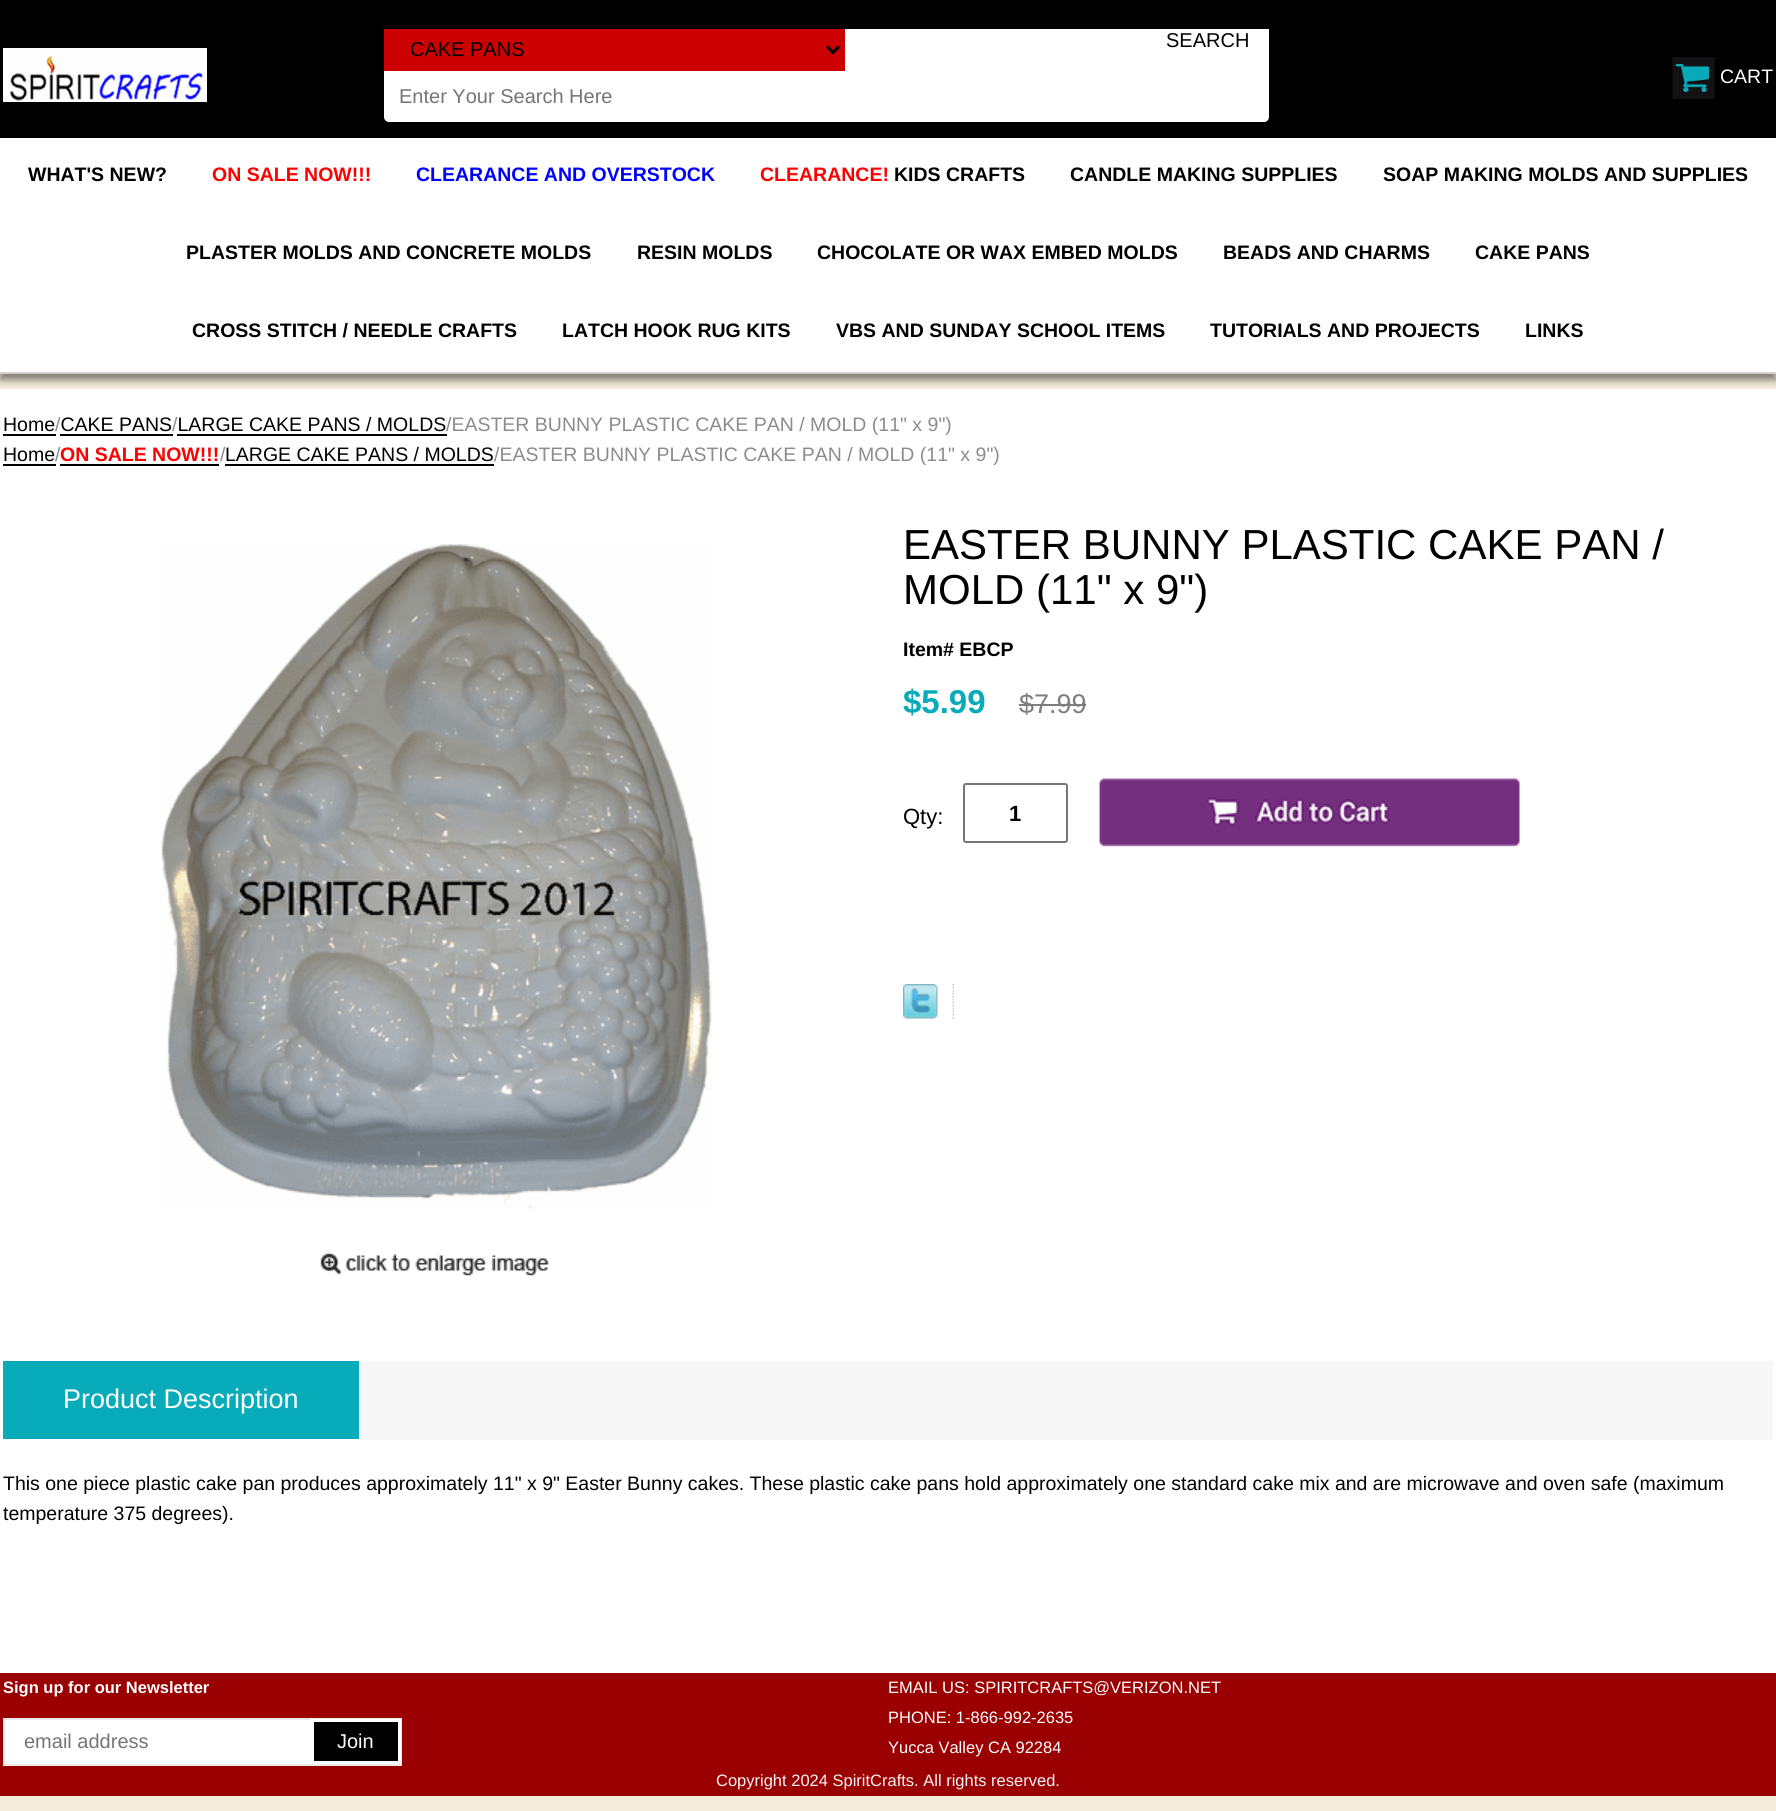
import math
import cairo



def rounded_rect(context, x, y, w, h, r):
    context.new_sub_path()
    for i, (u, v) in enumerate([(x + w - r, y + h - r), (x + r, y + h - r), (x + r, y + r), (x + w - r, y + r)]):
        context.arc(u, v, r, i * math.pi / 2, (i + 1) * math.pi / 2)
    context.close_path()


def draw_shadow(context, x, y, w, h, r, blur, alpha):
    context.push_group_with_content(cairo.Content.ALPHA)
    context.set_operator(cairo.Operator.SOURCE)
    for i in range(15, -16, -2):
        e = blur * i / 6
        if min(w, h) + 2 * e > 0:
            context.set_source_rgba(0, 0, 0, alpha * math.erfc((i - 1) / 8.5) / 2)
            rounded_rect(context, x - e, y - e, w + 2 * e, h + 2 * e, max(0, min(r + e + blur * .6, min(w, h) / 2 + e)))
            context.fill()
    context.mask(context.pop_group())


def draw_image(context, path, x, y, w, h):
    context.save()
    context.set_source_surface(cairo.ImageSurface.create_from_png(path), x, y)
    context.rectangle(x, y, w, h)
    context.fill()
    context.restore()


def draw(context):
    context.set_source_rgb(243 / 255, 236 / 255, 218 / 255)
    context.paint()
    context.set_source_rgb(0, 0, 0)
    context.rectangle(0, 0, 1776, 138)
    context.fill()
    draw_image(context, "images/1.png", 3, 48, 204, 54)
    context.set_source_rgb(1, 1, 1)
    rounded_rect(context, 384, 29, 885, 93, 5)
    context.fill()
    context.rectangle(1264, 29, 5, 5)
    context.fill()
    context.set_source_rgb(204 / 255, 0, 0)
    context.rectangle(384, 29, 461, 42)
    context.fill()
    context.new_path()
    context.move_to(827, 46.5)
    context.line_to(833, 52.5)
    context.line_to(839, 46.5)
    context.set_source_rgb(0, 0, 0)
    context.set_line_width(3)
    context.stroke()
    draw_image(context, "images/2.png", 1672, 57, 43, 42)
    context.set_source_rgb(0, 0, 0)
    draw_shadow(context, 0, 144, 1776, 236, 0, 4, 0.48)
    context.set_source_rgb(1, 1, 1)
    context.rectangle(0, 138, 1776, 234)
    context.fill()
    context.set_source_rgb(208 / 255, 208 / 255, 208 / 255)
    context.rectangle(0, 372, 1776, 2)
    context.fill()
    context.set_source_rgb(1, 1, 1)
    context.rectangle(0, 389, 1776, 1284)
    context.fill()
    context.set_source_rgb(0, 0, 0)
    context.rectangle(3, 434, 53, 2)
    context.fill()
    context.rectangle(60, 434, 113, 2)
    context.fill()
    context.rectangle(177, 434, 270, 2)
    context.fill()
    context.rectangle(3, 464, 53, 2)
    context.fill()
    context.rectangle(60, 464, 159, 2)
    context.fill()
    context.rectangle(225, 464, 269, 2)
    context.fill()
    draw_image(context, "images/3.png", 161, 544, 551, 667)
    draw_image(context, "images/4.png", 320, 1252, 230, 24)
    context.set_source_rgb(126 / 255, 126 / 255, 126 / 255)
    context.rectangle(1019, 704, 67, 2)
    context.fill()
    rounded_rect(context, 964, 784, 103, 58, 2)
    context.set_source_rgb(118 / 255, 118 / 255, 118 / 255)
    context.set_line_width(2)
    context.stroke()
    draw_image(context, "images/5.png", 1099, 778, 421, 69)
    draw_image(context, "images/6.png", 903, 984, 35, 35)
    draw_image(context, "images/7.png", 952, 984, 2, 35)
    context.set_source_rgb(247 / 255, 247 / 255, 247 / 255)
    context.rectangle(359, 1361, 1414, 79)
    context.fill()
    context.set_source_rgb(8 / 255, 171 / 255, 186 / 255)
    context.rectangle(3, 1361, 356, 78)
    context.fill()
    context.set_source_rgb(154 / 255, 0, 2 / 255)
    context.rectangle(0, 1673, 1776, 123)
    context.fill()
    context.set_source_rgb(1, 1, 1)
    context.rectangle(5, 1720, 306, 44)
    context.fill()
    context.rectangle(4, 1719, 397, 46)
    context.set_source_rgb(235 / 255, 235 / 255, 235 / 255)
    context.stroke()
    context.set_source_rgb(0, 0, 0)
    context.rectangle(312.5, 1720.5, 87, 42)
    context.fill_preserve()
    context.set_source_rgb(1, 1, 1)
    context.set_line_width(3)
    context.stroke()
    context.select_font_face("Liberation Sans")
    context.set_font_size(20)
    context.set_source_rgb(0, 0, 0)
    context.move_to(1166, 47)
    context.show_text("SEARCH")
    context.move_to(410, 56)
    context.show_text("CAKE PANS")
    context.set_source_rgb(117 / 255, 117 / 255, 117 / 255)
    context.move_to(399, 103)
    context.show_text("Enter Your Search Here")
    context.set_font_size(19.5)
    context.set_source_rgb(1, 1, 1)
    context.move_to(1720, 83)
    context.show_text("CART")
    context.select_font_face("Liberation Sans", cairo.FontSlant.NORMAL, cairo.FontWeight.BOLD)
    context.set_source_rgb(0, 0, 0)
    context.move_to(28, 181)
    context.show_text("WHAT'S NEW?")
    context.set_source_rgb(1, 0, 0)
    context.move_to(212, 181)
    context.show_text("ON SALE NOW!!!")
    context.set_source_rgb(0, 0, 1)
    context.move_to(416, 181)
    context.show_text("CLEARANCE AND OVERSTOCK")
    context.set_source_rgb(1, 0, 0)
    context.move_to(760, 181)
    context.show_text("CLEARANCE!")
    context.set_source_rgb(0, 0, 0)
    context.move_to(894, 181)
    context.show_text("KIDS CRAFTS")
    context.move_to(1070, 181)
    context.show_text("CANDLE MAKING SUPPLIES")
    context.move_to(1383, 181)
    context.show_text("SOAP MAKING MOLDS AND SUPPLIES")
    context.move_to(186, 259)
    context.show_text("PLASTER MOLDS AND CONCRETE MOLDS")
    context.move_to(637, 259)
    context.show_text("RESIN MOLDS")
    context.move_to(817, 259)
    context.show_text("CHOCOLATE OR WAX EMBED MOLDS")
    context.move_to(1223, 259)
    context.show_text("BEADS AND CHARMS")
    context.move_to(1475, 259)
    context.show_text("CAKE PANS")
    context.move_to(192, 337)
    context.show_text("CROSS STITCH / NEEDLE CRAFTS")
    context.move_to(562, 337)
    context.show_text("LATCH HOOK RUG KITS")
    context.move_to(836, 337)
    context.show_text("VBS AND SUNDAY SCHOOL ITEMS")
    context.move_to(1210, 337)
    context.show_text("TUTORIALS AND PROJECTS")
    context.move_to(1525, 337)
    context.show_text("LINKS")
    context.select_font_face("Liberation Sans")
    context.move_to(3, 431)
    context.show_text("Home CAKE PANS LARGE CAKE PANS / MOLDS")
    context.set_source_rgb(140 / 255, 140 / 255, 140 / 255)
    context.move_to(55, 431)
    context.show_text("/")
    context.move_to(172, 431)
    context.show_text("/")
    context.move_to(446, 431)
    context.show_text("/EASTER BUNNY PLASTIC CAKE PAN / MOLD (11\" x 9\")")
    context.set_source_rgb(0, 0, 0)
    context.move_to(3, 461)
    context.show_text("Home")
    context.set_source_rgb(140 / 255, 140 / 255, 140 / 255)
    context.move_to(55, 461)
    context.show_text("/")
    context.select_font_face("Liberation Sans", cairo.FontSlant.NORMAL, cairo.FontWeight.BOLD)
    context.set_source_rgb(1, 0, 0)
    context.move_to(60, 461)
    context.show_text("ON SALE NOW!!!")
    context.select_font_face("Liberation Sans")
    context.set_source_rgb(140 / 255, 140 / 255, 140 / 255)
    context.move_to(220, 461)
    context.show_text("/")
    context.set_source_rgb(0, 0, 0)
    context.move_to(225, 461)
    context.show_text("LARGE CAKE PANS / MOLDS")
    context.set_source_rgb(140 / 255, 140 / 255, 140 / 255)
    context.move_to(494, 461)
    context.show_text("/EASTER BUNNY PLASTIC CAKE PAN / MOLD (11\" x 9\")")
    context.set_font_size(42)
    context.set_source_rgb(0, 0, 0)
    context.move_to(903, 559)
    context.show_text("EASTER BUNNY PLASTIC CAKE PAN /")
    context.move_to(903, 604)
    context.show_text("MOLD (11\" x 9\")")
    context.select_font_face("Liberation Sans", cairo.FontSlant.NORMAL, cairo.FontWeight.BOLD)
    context.set_font_size(19.5)
    context.move_to(903, 656)
    context.show_text("Item# EBCP")
    context.set_font_size(33)
    context.set_source_rgb(8 / 255, 171 / 255, 186 / 255)
    context.move_to(903, 713)
    context.show_text("$5.99")
    context.select_font_face("Liberation Sans")
    context.set_font_size(27)
    context.set_source_rgb(126 / 255, 126 / 255, 126 / 255)
    context.move_to(1019, 713)
    context.show_text("$7.99")
    context.set_font_size(22)
    context.set_source_rgb(0, 0, 0)
    context.move_to(903, 824)
    context.show_text("Qty:")
    context.select_font_face("Liberation Sans", cairo.FontSlant.NORMAL, cairo.FontWeight.BOLD)
    context.move_to(1009, 821)
    context.show_text("1")
    context.select_font_face("Liberation Sans")
    context.set_font_size(27)
    context.set_source_rgb(1, 1, 1)
    context.move_to(63, 1408)
    context.show_text("Product Description")
    context.set_font_size(19.5)
    context.set_source_rgb(0, 0, 0)
    context.move_to(3, 1490)
    context.show_text("This one piece plastic cake pan produces approximately 11\" x 9\" Easter Bunny cakes. These plastic cake pans hold approximately one standard cake mix and are microwave and oven safe (maximum")
    context.move_to(3, 1520)
    context.show_text("temperature 375 degrees).")
    context.select_font_face("Liberation Sans", cairo.FontSlant.NORMAL, cairo.FontWeight.BOLD)
    context.set_font_size(16.5)
    context.set_source_rgb(1, 1, 1)
    context.move_to(3, 1693)
    context.show_text("Sign up for our Newsletter")
    context.select_font_face("Liberation Sans")
    context.set_font_size(20)
    context.set_source_rgb(117 / 255, 117 / 255, 117 / 255)
    context.move_to(24, 1748)
    context.show_text("email address")
    context.set_source_rgb(1, 1, 1)
    context.move_to(337, 1748)
    context.show_text("Join")
    context.set_font_size(16.5)
    context.move_to(888, 1693)
    context.show_text("EMAIL US: SPIRITCRAFTS@VERIZON.NET")
    context.move_to(888, 1723)
    context.show_text("PHONE: 1-866-992-2635")
    context.move_to(888, 1753)
    context.show_text("Yucca Valley CA 92284")
    context.set_source_rgb(246 / 255, 246 / 255, 246 / 255)
    context.move_to(716, 1786)
    context.show_text("Copyright 2024 SpiritCrafts. All rights reserved.")


surface = cairo.ImageSurface(cairo.Format.RGB24, 1776, 1811)
context = cairo.Context(surface)
options = cairo.FontOptions()
options.set_hint_metrics(cairo.HintMetrics.OFF)
options.set_hint_style(cairo.HintStyle.NONE)
context.set_font_options(options)
context.set_miter_limit(4)
draw(context)
surface.write_to_png("out.png")
